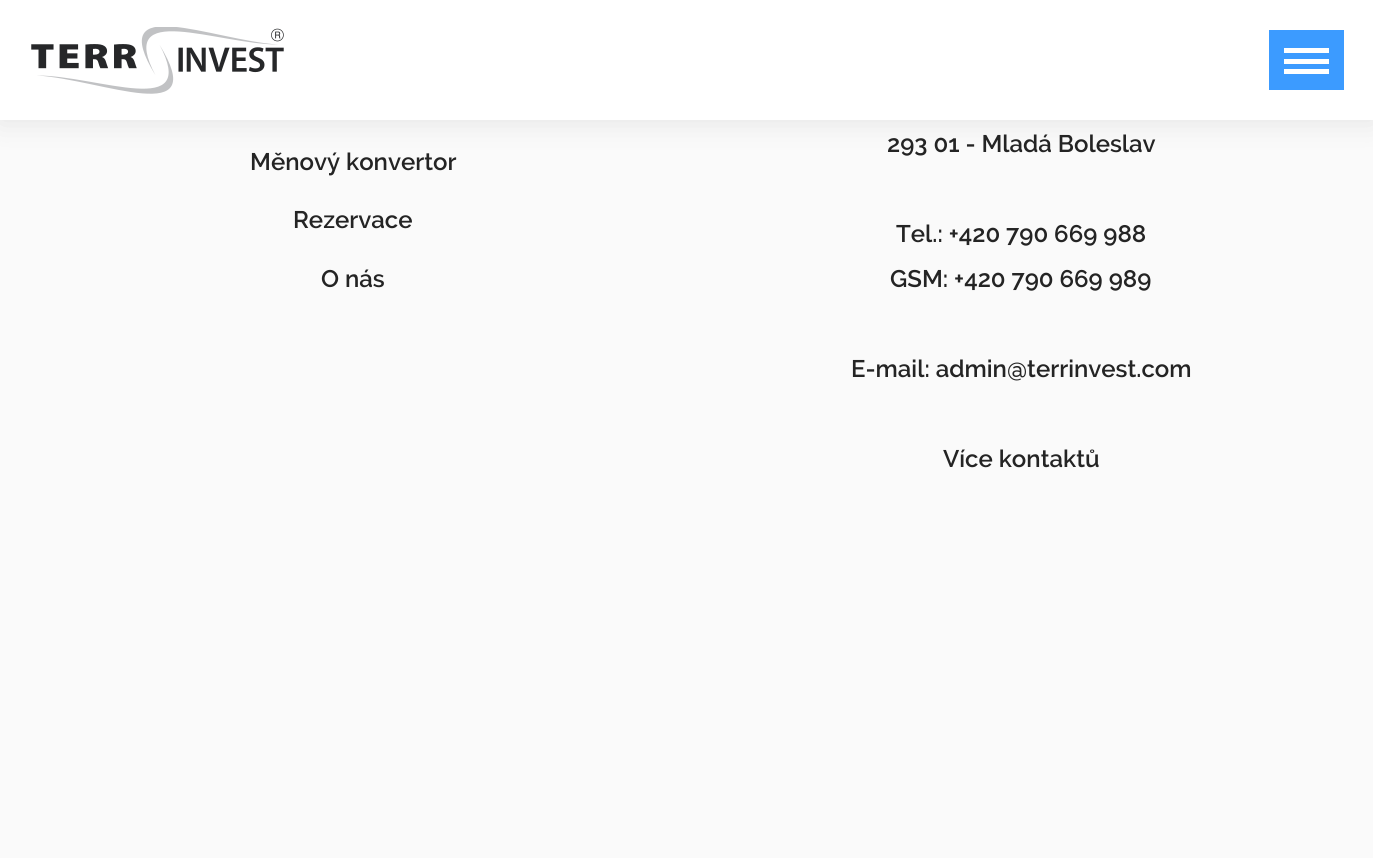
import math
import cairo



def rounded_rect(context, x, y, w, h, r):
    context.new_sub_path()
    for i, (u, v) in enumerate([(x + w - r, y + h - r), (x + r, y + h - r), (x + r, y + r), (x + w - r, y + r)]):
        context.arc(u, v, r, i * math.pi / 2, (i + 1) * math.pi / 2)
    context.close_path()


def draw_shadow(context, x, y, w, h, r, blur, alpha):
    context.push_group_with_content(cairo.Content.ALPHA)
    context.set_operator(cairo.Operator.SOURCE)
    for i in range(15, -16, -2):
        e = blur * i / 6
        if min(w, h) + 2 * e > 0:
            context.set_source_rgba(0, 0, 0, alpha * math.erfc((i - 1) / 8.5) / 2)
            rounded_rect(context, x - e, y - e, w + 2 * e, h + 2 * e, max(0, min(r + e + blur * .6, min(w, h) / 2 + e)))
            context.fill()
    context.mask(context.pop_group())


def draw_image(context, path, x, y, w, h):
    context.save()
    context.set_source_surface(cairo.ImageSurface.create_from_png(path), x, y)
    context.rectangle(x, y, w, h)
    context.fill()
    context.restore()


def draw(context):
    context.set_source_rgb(250 / 255, 250 / 255, 250 / 255)
    context.paint()
    context.set_source_rgb(0, 0, 0)
    draw_shadow(context, 0, 0, 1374, 120, 0, 15, 0.1)
    context.set_source_rgb(1, 1, 1)
    context.rectangle(0, 0, 1373, 120)
    context.fill()
    draw_image(context, "images/1.png", 31, 27, 253, 67)
    context.set_source_rgb(60 / 255, 155 / 255, 1)
    context.rectangle(1269, 30, 75, 60)
    context.fill()
    context.set_source_rgb(1, 1, 1)
    context.rectangle(1284, 48, 45, 5)
    context.fill()
    context.rectangle(1284, 59, 45, 5)
    context.fill()
    context.rectangle(1284, 69, 45, 5)
    context.fill()
    context.select_font_face("Raleway SemiBold")
    context.set_font_size(24)
    context.set_source_rgb(36 / 255, 36 / 255, 36 / 255)
    context.move_to(250, 170)
    context.show_text("Měnový konvertor")
    context.move_to(293, 228)
    context.show_text("Rezervace")
    context.move_to(321, 287)
    context.show_text("O nás")
    context.move_to(887, 152)
    context.show_text("293 01 - Mladá Boleslav")
    context.move_to(896, 242)
    context.show_text("Tel.: +420 790 669 988")
    context.move_to(890, 287)
    context.show_text("GSM: +420 790 669 989")
    context.move_to(851, 377)
    context.show_text("E-mail: admin@terrinvest.com")
    context.move_to(943, 467)
    context.show_text("Více kontaktů")


surface = cairo.ImageSurface(cairo.Format.RGB24, 1373, 858)
context = cairo.Context(surface)
options = cairo.FontOptions()
options.set_hint_metrics(cairo.HintMetrics.OFF)
options.set_hint_style(cairo.HintStyle.NONE)
context.set_font_options(options)
context.set_miter_limit(4)
draw(context)
surface.write_to_png("out.png")
